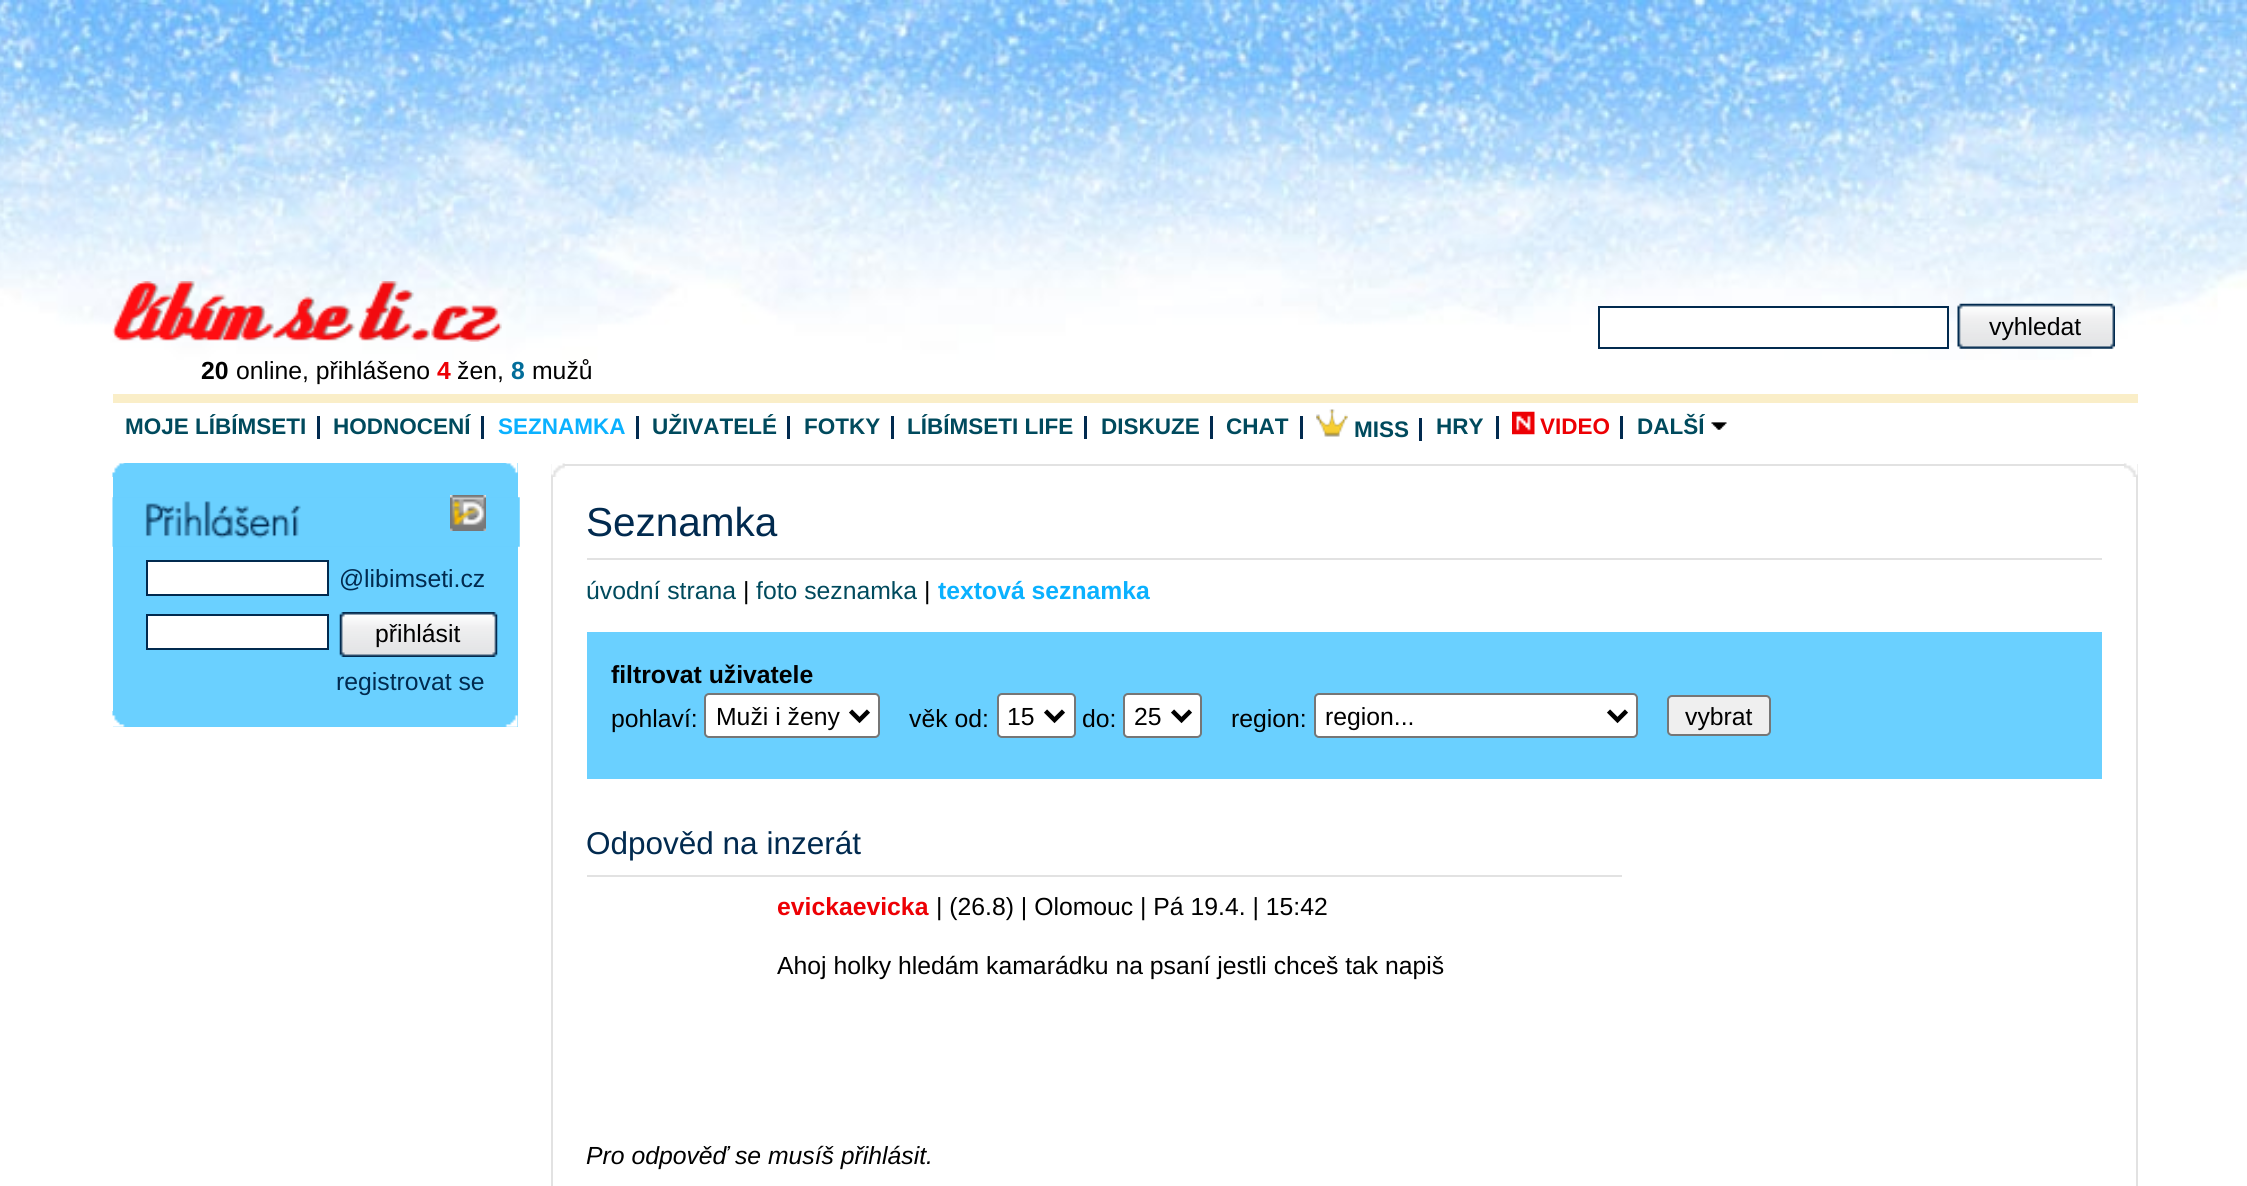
import math
import cairo



def rounded_rect(context, x, y, w, h, r):
    context.new_sub_path()
    for i, (u, v) in enumerate([(x + w - r, y + h - r), (x + r, y + h - r), (x + r, y + r), (x + w - r, y + r)]):
        context.arc(u, v, r, i * math.pi / 2, (i + 1) * math.pi / 2)
    context.close_path()


def draw_image(context, path, x, y, w, h):
    context.save()
    context.set_source_surface(cairo.ImageSurface.create_from_png(path), x, y)
    context.rectangle(x, y, w, h)
    context.fill()
    context.restore()


def draw(context):
    context.set_source_rgb(1, 1, 1)
    context.paint()
    draw_image(context, "images/1.png", 0, 0, 2247, 360)
    draw_image(context, "images/2.png", 112, 281, 390, 61)
    context.set_source_rgb(1, 1, 1)
    context.rectangle(1599, 307, 349, 41)
    context.fill_preserve()
    context.set_source_rgb(1 / 255, 42 / 255, 79 / 255)
    context.stroke()
    draw_image(context, "images/3.png", 1957, 303, 158, 46)
    context.set_source_rgb(250 / 255, 238 / 255, 200 / 255)
    context.rectangle(113, 394, 2025, 9)
    context.fill()
    context.set_source_rgb(1 / 255, 42 / 255, 79 / 255)
    context.rectangle(317, 416, 3, 23)
    context.fill()
    context.rectangle(481, 416, 3, 23)
    context.fill()
    context.rectangle(636, 416, 3, 23)
    context.fill()
    context.rectangle(787, 416, 3, 23)
    context.fill()
    context.rectangle(891, 416, 3, 23)
    context.fill()
    context.rectangle(1084, 416, 3, 23)
    context.fill()
    context.rectangle(1210, 416, 3, 23)
    context.fill()
    context.rectangle(1300, 416, 3, 23)
    context.fill()
    context.rectangle(1419, 418, 3, 23)
    context.fill()
    draw_image(context, "images/4.png", 1316, 409, 32, 28)
    context.rectangle(1496, 416, 3, 23)
    context.fill()
    context.rectangle(1620, 416, 3, 23)
    context.fill()
    draw_image(context, "images/5.png", 1512, 411, 23, 24)
    draw_image(context, "images/6.png", 1711, 422, 16, 8)
    context.set_source_rgb(106 / 255, 208 / 255, 1)
    context.rectangle(113, 463, 405, 264)
    context.fill()
    draw_image(context, "images/7.png", 112, 461, 406, 16)
    draw_image(context, "images/8.png", 112, 497, 408, 50)
    context.set_source_rgb(1, 1, 1)
    context.rectangle(123, 461, 384, 2)
    context.fill()
    context.rectangle(450, 495, 36, 36)
    context.fill()
    draw_image(context, "images/9.png", 450, 495, 36, 36)
    context.rectangle(147, 561, 181, 34)
    context.fill_preserve()
    context.set_source_rgb(1 / 255, 42 / 255, 79 / 255)
    context.stroke()
    context.set_source_rgb(1, 1, 1)
    context.rectangle(147, 615, 181, 34)
    context.fill_preserve()
    context.set_source_rgb(1 / 255, 42 / 255, 79 / 255)
    context.stroke()
    draw_image(context, "images/10.png", 339, 612, 159, 45)
    draw_image(context, "images/11.png", 112, 711, 406, 16)
    context.rectangle(552, 465, 1585, 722)
    context.set_source_rgb(226 / 255, 226 / 255, 226 / 255)
    context.stroke()
    draw_image(context, "images/12.png", 551, 463, 14, 14)
    draw_image(context, "images/13.png", 2124, 463, 14, 14)
    context.rectangle(587, 558, 1515, 2)
    context.fill()
    context.set_source_rgb(106 / 255, 208 / 255, 1)
    context.rectangle(587, 632, 1515, 147)
    context.fill()
    context.set_source_rgb(1, 1, 1)
    rounded_rect(context, 705, 694, 174, 43, 4)
    context.fill_preserve()
    context.set_source_rgb(118 / 255, 118 / 255, 118 / 255)
    context.stroke()
    context.new_path()
    context.move_to(850.5, 711)
    context.line_to(859.5, 720)
    context.line_to(868.5, 711)
    context.set_source_rgb(0, 0, 0)
    context.set_line_width(4.5)
    context.stroke()
    context.set_source_rgb(1, 1, 1)
    rounded_rect(context, 998, 694, 77, 43, 4)
    context.fill_preserve()
    context.set_source_rgb(118 / 255, 118 / 255, 118 / 255)
    context.set_line_width(2)
    context.stroke()
    context.new_path()
    context.move_to(1045.5, 711)
    context.line_to(1054.5, 720)
    context.line_to(1063.5, 711)
    context.set_source_rgb(0, 0, 0)
    context.set_line_width(4.5)
    context.stroke()
    context.set_source_rgb(1, 1, 1)
    rounded_rect(context, 1124, 694, 77, 43, 4)
    context.fill_preserve()
    context.set_source_rgb(118 / 255, 118 / 255, 118 / 255)
    context.set_line_width(2)
    context.stroke()
    context.new_path()
    context.move_to(1172.5, 711)
    context.line_to(1181.5, 720)
    context.line_to(1190.5, 711)
    context.set_source_rgb(0, 0, 0)
    context.set_line_width(4.5)
    context.stroke()
    context.set_source_rgb(1, 1, 1)
    rounded_rect(context, 1315, 694, 322, 43, 4)
    context.fill_preserve()
    context.set_source_rgb(118 / 255, 118 / 255, 118 / 255)
    context.set_line_width(2)
    context.stroke()
    context.new_path()
    context.move_to(1608.5, 711)
    context.line_to(1617.5, 720)
    context.line_to(1626.5, 711)
    context.set_source_rgb(0, 0, 0)
    context.set_line_width(4.5)
    context.stroke()
    context.set_source_rgb(239 / 255, 239 / 255, 239 / 255)
    rounded_rect(context, 1668, 696, 102, 39, 4)
    context.fill_preserve()
    context.set_source_rgb(118 / 255, 118 / 255, 118 / 255)
    context.set_line_width(2)
    context.stroke()
    context.set_source_rgb(226 / 255, 226 / 255, 226 / 255)
    context.rectangle(587, 875, 1035, 2)
    context.fill()
    context.select_font_face("Liberation Sans")
    context.set_font_size(24.75)
    context.set_source_rgb(0, 0, 0)
    context.move_to(1989, 335)
    context.show_text("vyhledat")
    context.select_font_face("Liberation Sans", cairo.FontSlant.NORMAL, cairo.FontWeight.BOLD)
    context.move_to(201, 379)
    context.show_text("20")
    context.select_font_face("Liberation Sans")
    context.move_to(236, 379)
    context.show_text("online, přihlášeno")
    context.select_font_face("Liberation Sans", cairo.FontSlant.NORMAL, cairo.FontWeight.BOLD)
    context.set_source_rgb(237 / 255, 0, 4 / 255)
    context.move_to(437, 379)
    context.show_text("4")
    context.select_font_face("Liberation Sans")
    context.set_source_rgb(0, 0, 0)
    context.move_to(457, 379)
    context.show_text("žen,")
    context.select_font_face("Liberation Sans", cairo.FontSlant.NORMAL, cairo.FontWeight.BOLD)
    context.set_source_rgb(1 / 255, 109 / 255, 154 / 255)
    context.move_to(511, 379)
    context.show_text("8")
    context.select_font_face("Liberation Sans")
    context.set_source_rgb(0, 0, 0)
    context.move_to(532, 379)
    context.show_text("mužů")
    context.select_font_face("Liberation Sans", cairo.FontSlant.NORMAL, cairo.FontWeight.BOLD)
    context.set_font_size(22.5)
    context.set_source_rgb(0, 74 / 255, 93 / 255)
    context.move_to(125, 434)
    context.show_text("MOJE LÍBÍMSETI")
    context.move_to(333, 434)
    context.show_text("HODNOCENÍ")
    context.set_source_rgb(10 / 255, 177 / 255, 1)
    context.move_to(498, 434)
    context.show_text("SEZNAMKA")
    context.set_source_rgb(0, 74 / 255, 93 / 255)
    context.move_to(652, 434)
    context.show_text("UŽIVATELÉ")
    context.move_to(804, 434)
    context.show_text("FOTKY")
    context.move_to(907, 434)
    context.show_text("LÍBÍMSETI LIFE")
    context.move_to(1101, 434)
    context.show_text("DISKUZE")
    context.move_to(1226, 434)
    context.show_text("CHAT")
    context.move_to(1354, 437)
    context.show_text("MISS")
    context.move_to(1436, 434)
    context.show_text("HRY")
    context.set_source_rgb(237 / 255, 0, 4 / 255)
    context.move_to(1540, 434)
    context.show_text("VIDEO")
    context.set_source_rgb(0, 74 / 255, 93 / 255)
    context.move_to(1637, 434)
    context.show_text("DALŠÍ")
    context.select_font_face("Liberation Sans")
    context.set_font_size(24.75)
    context.set_source_rgb(1 / 255, 42 / 255, 79 / 255)
    context.move_to(339, 587)
    context.show_text("@libimseti.cz")
    context.set_source_rgb(0, 0, 0)
    context.move_to(375, 642)
    context.show_text("přihlásit")
    context.set_source_rgb(1 / 255, 42 / 255, 79 / 255)
    context.move_to(336, 690)
    context.show_text("registrovat se")
    context.set_font_size(40.5)
    context.move_to(586, 536)
    context.show_text("Seznamka")
    context.set_font_size(24.75)
    context.set_source_rgb(0, 74 / 255, 93 / 255)
    context.move_to(586, 599)
    context.show_text("úvodní strana")
    context.set_source_rgb(0, 0, 0)
    context.move_to(743, 599)
    context.show_text("|")
    context.set_source_rgb(0, 74 / 255, 93 / 255)
    context.move_to(756, 599)
    context.show_text("foto seznamka")
    context.set_source_rgb(0, 0, 0)
    context.move_to(924, 599)
    context.show_text("|")
    context.select_font_face("Liberation Sans", cairo.FontSlant.NORMAL, cairo.FontWeight.BOLD)
    context.set_source_rgb(10 / 255, 177 / 255, 1)
    context.move_to(938, 599)
    context.show_text("textová seznamka")
    context.set_source_rgb(0, 0, 0)
    context.move_to(611, 683)
    context.show_text("filtrovat uživatele")
    context.select_font_face("Liberation Sans")
    context.move_to(611, 727)
    context.show_text("pohlaví:")
    context.move_to(716, 725)
    context.show_text("Muži i ženy")
    context.move_to(909, 727)
    context.show_text("věk od:")
    context.move_to(1007, 725)
    context.show_text("15")
    context.move_to(1082, 727)
    context.show_text("do:")
    context.move_to(1134, 725)
    context.show_text("25")
    context.move_to(1231, 727)
    context.show_text("region:")
    context.move_to(1325, 725)
    context.show_text("region...")
    context.move_to(1685, 725)
    context.show_text("vybrat")
    context.set_font_size(31.5)
    context.set_source_rgb(1 / 255, 42 / 255, 79 / 255)
    context.move_to(586, 854)
    context.show_text("Odpověd na inzerát")
    context.select_font_face("Liberation Sans", cairo.FontSlant.NORMAL, cairo.FontWeight.BOLD)
    context.set_font_size(24.75)
    context.set_source_rgb(237 / 255, 0, 4 / 255)
    context.move_to(777, 915)
    context.show_text("evickaevicka")
    context.select_font_face("Liberation Sans")
    context.set_source_rgb(0, 0, 0)
    context.move_to(936, 915)
    context.show_text("| (26.8) | Olomouc | Pá 19.4. | 15:42")
    context.move_to(777, 974)
    context.show_text("Ahoj holky hledám kamarádku na psaní jestli chceš tak napiš")
    context.select_font_face("Liberation Sans", cairo.FontSlant.ITALIC)
    context.move_to(586, 1164)
    context.show_text("Pro odpověď se musíš přihlásit.")


surface = cairo.ImageSurface(cairo.Format.RGB24, 2247, 1186)
context = cairo.Context(surface)
options = cairo.FontOptions()
options.set_hint_metrics(cairo.HintMetrics.OFF)
options.set_hint_style(cairo.HintStyle.NONE)
context.set_font_options(options)
context.set_miter_limit(4)
draw(context)
surface.write_to_png("out.png")
